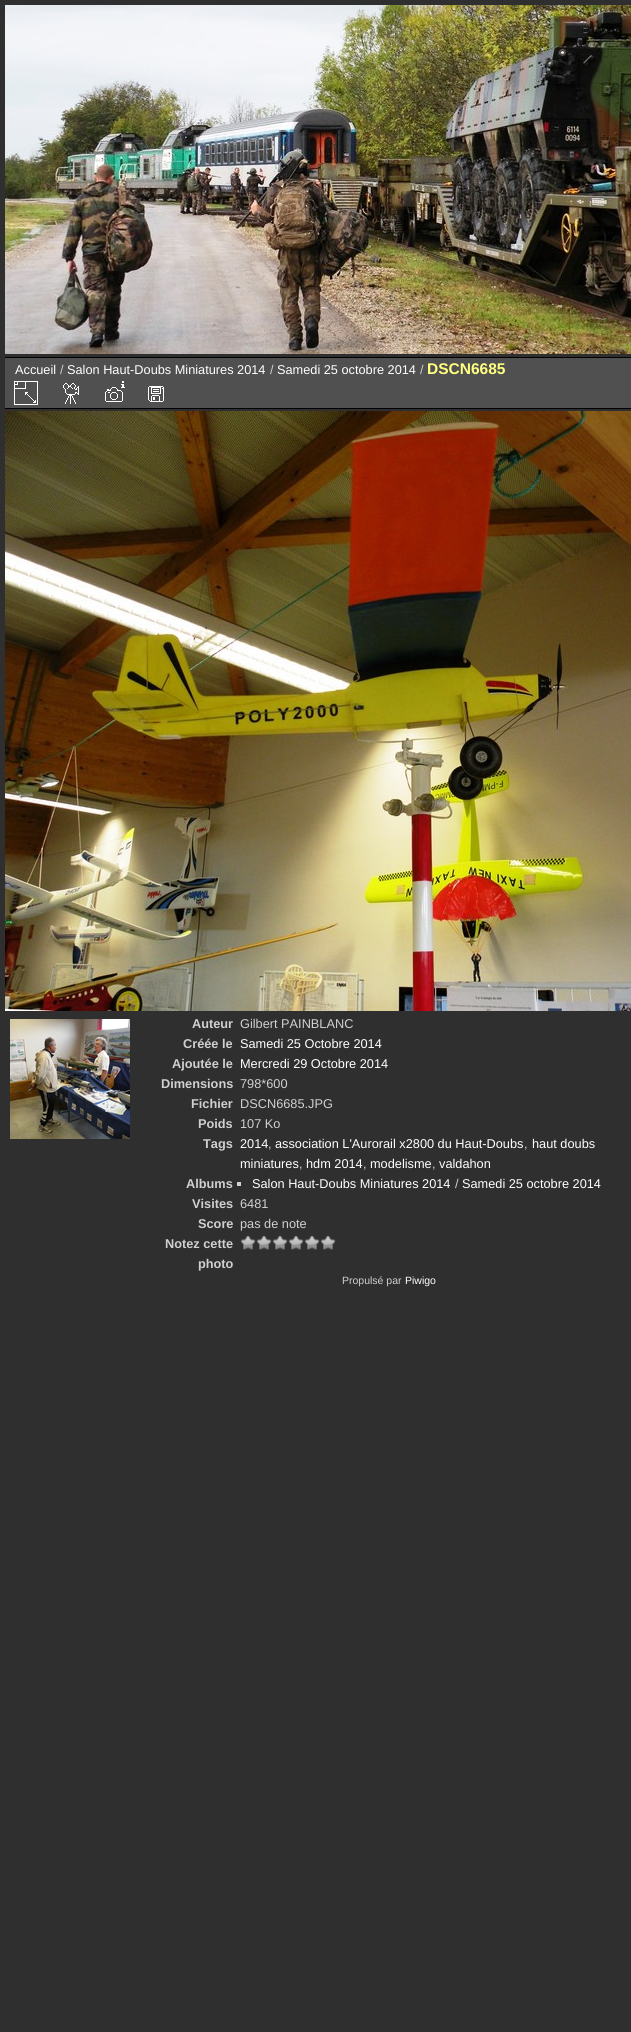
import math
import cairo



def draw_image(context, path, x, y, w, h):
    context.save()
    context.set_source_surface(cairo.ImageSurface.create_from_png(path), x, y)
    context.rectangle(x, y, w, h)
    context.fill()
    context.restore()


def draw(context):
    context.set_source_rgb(47 / 255, 47 / 255, 47 / 255)
    context.paint()
    draw_image(context, "images/1.png", 5, 5, 626, 349)
    context.set_source_rgb(80 / 255, 80 / 255, 80 / 255)
    context.rectangle(5, 358, 626, 50)
    context.fill()
    context.set_source_rgb(0, 0, 0)
    context.rectangle(5, 408, 626, 1)
    context.fill()
    draw_image(context, "images/2.png", 14, 381, 24, 24)
    draw_image(context, "images/3.png", 63, 383, 16, 21)
    draw_image(context, "images/4.png", 105, 381, 20, 21)
    draw_image(context, "images/5.png", 148, 386, 16, 16)
    context.rectangle(5, 357, 626, 1)
    context.fill()
    draw_image(context, "images/6.png", 5, 411, 626, 600)
    draw_image(context, "images/7.png", 10, 1019, 120, 120)
    context.set_source_rgb(208 / 255, 208 / 255, 208 / 255)
    context.rectangle(237, 1182, 4, 4)
    context.fill()
    draw_image(context, "images/8.png", 240, 1236, 16, 14)
    draw_image(context, "images/8.png", 256, 1236, 16, 14)
    draw_image(context, "images/8.png", 272, 1236, 16, 14)
    draw_image(context, "images/8.png", 288, 1236, 16, 14)
    draw_image(context, "images/8.png", 304, 1236, 16, 14)
    draw_image(context, "images/8.png", 320, 1236, 16, 14)
    context.select_font_face("Liberation Sans")
    context.set_font_size(12.75)
    context.set_source_rgb(1, 1, 1)
    context.move_to(15, 374)
    context.show_text("Accueil")
    context.set_source_rgb(208 / 255, 208 / 255, 208 / 255)
    context.move_to(60, 374)
    context.show_text("/")
    context.set_source_rgb(1, 1, 1)
    context.move_to(67, 374)
    context.show_text("Salon Haut-Doubs Miniatures 2014")
    context.set_source_rgb(208 / 255, 208 / 255, 208 / 255)
    context.move_to(270, 374)
    context.show_text("/")
    context.set_source_rgb(1, 1, 1)
    context.move_to(277, 374)
    context.show_text("Samedi 25 octobre 2014")
    context.set_source_rgb(208 / 255, 208 / 255, 208 / 255)
    context.move_to(420, 374)
    context.show_text("/")
    context.select_font_face("Liberation Sans", cairo.FontSlant.NORMAL, cairo.FontWeight.BOLD)
    context.set_font_size(15.5)
    context.set_source_rgb(1, 1, 128 / 255)
    context.move_to(427, 374)
    context.show_text("DSCN6685")
    context.set_font_size(12.75)
    context.set_source_rgb(208 / 255, 208 / 255, 208 / 255)
    context.move_to(192, 1028)
    context.show_text("Auteur")
    context.select_font_face("Liberation Sans")
    context.move_to(240, 1028)
    context.show_text("Gilbert PAINBLANC")
    context.select_font_face("Liberation Sans", cairo.FontSlant.NORMAL, cairo.FontWeight.BOLD)
    context.move_to(183, 1048)
    context.show_text("Créée le")
    context.select_font_face("Liberation Sans")
    context.set_source_rgb(1, 1, 1)
    context.move_to(240, 1048)
    context.show_text("Samedi 25 Octobre 2014")
    context.select_font_face("Liberation Sans", cairo.FontSlant.NORMAL, cairo.FontWeight.BOLD)
    context.set_source_rgb(208 / 255, 208 / 255, 208 / 255)
    context.move_to(172, 1068)
    context.show_text("Ajoutée le")
    context.select_font_face("Liberation Sans")
    context.set_source_rgb(1, 1, 1)
    context.move_to(240, 1068)
    context.show_text("Mercredi 29 Octobre 2014")
    context.select_font_face("Liberation Sans", cairo.FontSlant.NORMAL, cairo.FontWeight.BOLD)
    context.set_source_rgb(208 / 255, 208 / 255, 208 / 255)
    context.move_to(161, 1088)
    context.show_text("Dimensions")
    context.select_font_face("Liberation Sans")
    context.move_to(240, 1088)
    context.show_text("798*600")
    context.select_font_face("Liberation Sans", cairo.FontSlant.NORMAL, cairo.FontWeight.BOLD)
    context.move_to(191, 1108)
    context.show_text("Fichier")
    context.select_font_face("Liberation Sans")
    context.move_to(240, 1108)
    context.show_text("DSCN6685.JPG")
    context.select_font_face("Liberation Sans", cairo.FontSlant.NORMAL, cairo.FontWeight.BOLD)
    context.move_to(198, 1128)
    context.show_text("Poids")
    context.select_font_face("Liberation Sans")
    context.move_to(240, 1128)
    context.show_text("107 Ko")
    context.select_font_face("Liberation Sans", cairo.FontSlant.NORMAL, cairo.FontWeight.BOLD)
    context.move_to(203, 1148)
    context.show_text("Tags")
    context.select_font_face("Liberation Sans")
    context.set_source_rgb(1, 1, 1)
    context.move_to(240, 1148)
    context.show_text("2014")
    context.set_source_rgb(208 / 255, 208 / 255, 208 / 255)
    context.move_to(268, 1148)
    context.show_text(",")
    context.set_source_rgb(1, 1, 1)
    context.move_to(275, 1148)
    context.show_text("association L'Aurorail x2800 du Haut-Doubs")
    context.set_source_rgb(208 / 255, 208 / 255, 208 / 255)
    context.move_to(524, 1148)
    context.show_text(",")
    context.set_source_rgb(1, 1, 1)
    context.move_to(532, 1148)
    context.show_text("haut doubs")
    context.move_to(240, 1168)
    context.show_text("miniatures")
    context.set_source_rgb(208 / 255, 208 / 255, 208 / 255)
    context.move_to(299, 1168)
    context.show_text(",")
    context.set_source_rgb(1, 1, 1)
    context.move_to(306, 1168)
    context.show_text("hdm 2014")
    context.set_source_rgb(208 / 255, 208 / 255, 208 / 255)
    context.move_to(363, 1168)
    context.show_text(",")
    context.set_source_rgb(1, 1, 1)
    context.move_to(370, 1168)
    context.show_text("modelisme")
    context.set_source_rgb(208 / 255, 208 / 255, 208 / 255)
    context.move_to(432, 1168)
    context.show_text(",")
    context.set_source_rgb(1, 1, 1)
    context.move_to(439, 1168)
    context.show_text("valdahon")
    context.select_font_face("Liberation Sans", cairo.FontSlant.NORMAL, cairo.FontWeight.BOLD)
    context.set_source_rgb(208 / 255, 208 / 255, 208 / 255)
    context.move_to(186, 1188)
    context.show_text("Albums")
    context.select_font_face("Liberation Sans")
    context.set_source_rgb(1, 1, 1)
    context.move_to(252, 1188)
    context.show_text("Salon Haut-Doubs Miniatures 2014")
    context.set_source_rgb(208 / 255, 208 / 255, 208 / 255)
    context.move_to(455, 1188)
    context.show_text("/")
    context.set_source_rgb(1, 1, 1)
    context.move_to(462, 1188)
    context.show_text("Samedi 25 octobre 2014")
    context.select_font_face("Liberation Sans", cairo.FontSlant.NORMAL, cairo.FontWeight.BOLD)
    context.set_source_rgb(208 / 255, 208 / 255, 208 / 255)
    context.move_to(192, 1208)
    context.show_text("Visites")
    context.select_font_face("Liberation Sans")
    context.move_to(240, 1208)
    context.show_text("6481")
    context.select_font_face("Liberation Sans", cairo.FontSlant.NORMAL, cairo.FontWeight.BOLD)
    context.move_to(198, 1228)
    context.show_text("Score")
    context.select_font_face("Liberation Sans")
    context.move_to(240, 1228)
    context.show_text("pas de note")
    context.select_font_face("Liberation Sans", cairo.FontSlant.NORMAL, cairo.FontWeight.BOLD)
    context.move_to(165, 1248)
    context.show_text("Notez cette")
    context.move_to(198, 1268)
    context.show_text("photo")
    context.select_font_face("Liberation Sans")
    context.set_font_size(10.5)
    context.move_to(342, 1284)
    context.show_text("Propulsé par")
    context.set_source_rgb(1, 1, 1)
    context.move_to(405, 1284)
    context.show_text("Piwigo")


surface = cairo.ImageSurface(cairo.Format.RGB24, 631, 2032)
context = cairo.Context(surface)
options = cairo.FontOptions()
options.set_hint_metrics(cairo.HintMetrics.OFF)
options.set_hint_style(cairo.HintStyle.NONE)
context.set_font_options(options)
context.set_miter_limit(4)
draw(context)
surface.write_to_png("out.png")
